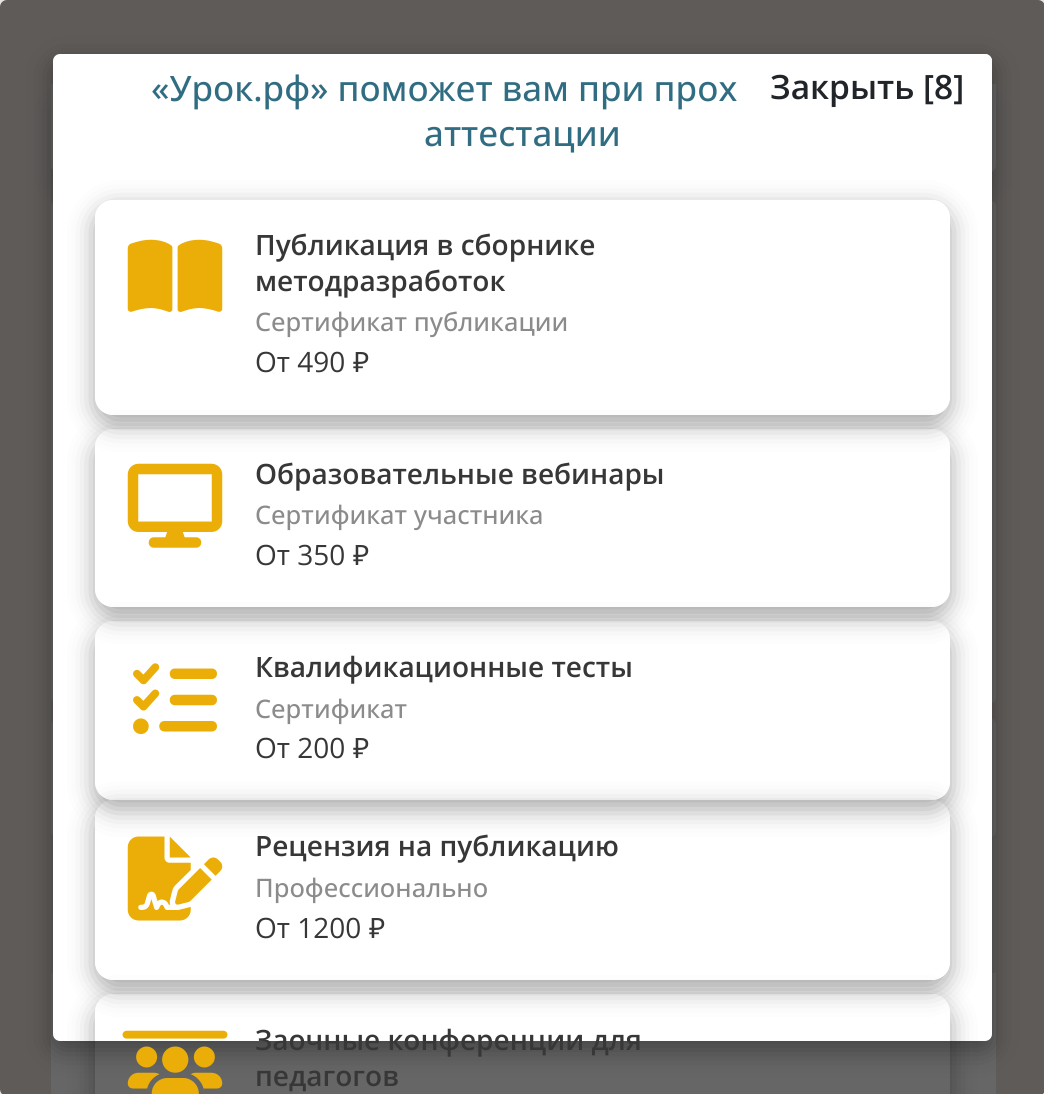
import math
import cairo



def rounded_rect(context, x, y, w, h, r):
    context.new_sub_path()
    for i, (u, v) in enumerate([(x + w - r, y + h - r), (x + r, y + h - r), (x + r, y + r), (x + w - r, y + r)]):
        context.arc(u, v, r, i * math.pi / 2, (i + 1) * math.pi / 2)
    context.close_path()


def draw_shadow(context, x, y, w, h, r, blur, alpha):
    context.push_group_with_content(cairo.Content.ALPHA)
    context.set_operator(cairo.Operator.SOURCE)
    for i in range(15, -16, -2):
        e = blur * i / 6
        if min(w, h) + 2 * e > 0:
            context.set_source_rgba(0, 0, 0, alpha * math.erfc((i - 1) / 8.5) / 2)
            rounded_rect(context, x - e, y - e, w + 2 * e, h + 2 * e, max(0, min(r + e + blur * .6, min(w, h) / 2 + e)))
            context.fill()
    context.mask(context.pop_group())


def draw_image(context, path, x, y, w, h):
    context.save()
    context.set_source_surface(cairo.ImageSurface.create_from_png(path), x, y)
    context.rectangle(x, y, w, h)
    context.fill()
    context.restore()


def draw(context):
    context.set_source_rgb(234 / 255, 227 / 255, 223 / 255)
    context.paint()
    context.set_source_rgb(1, 1, 1)
    rounded_rect(context, 51, 200, 945, 504, 7)
    context.fill()
    context.set_source_rgb(126 / 255, 126 / 255, 126 / 255)
    draw_shadow(context, 51, 102, 945, 87, 7, 9, 0.15)
    context.set_source_rgb(1, 1, 1)
    context.new_path()
    context.move_to(51, 84)
    context.line_to(996, 84)
    context.line_to(996, 165)
    context.curve_to(996, 169, 993, 172, 989, 172)
    context.line_to(58, 172)
    context.curve_to(54, 172, 51, 169, 51, 165)
    context.close_path()
    context.fill()
    context.new_path()
    context.move_to(58, 84)
    context.line_to(541, 84)
    context.line_to(541, 172)
    context.line_to(58, 172)
    context.curve_to(54, 172, 51, 169, 51, 165)
    context.line_to(51, 91)
    context.curve_to(51, 87, 54, 84, 58, 84)
    context.close_path()
    context.fill()
    rounded_rect(context, 51, 718, 945, 120, 7)
    context.fill()
    context.set_source_rgb(235 / 255, 235 / 255, 235 / 255)
    context.rectangle(51, 838, 945, 135)
    context.fill()
    context.set_source_rgb(1, 1, 1)
    context.rectangle(51, 973, 945, 121)
    context.fill()
    context.set_source_rgba(0, 0, 0, 0.6)
    rounded_rect(context, 0, 0, 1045, 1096, 7)
    context.fill()
    context.set_source_rgb(0, 0, 0)
    draw_shadow(context, 53, 63, 939, 987, 7, 13, 0.35)
    context.set_source_rgb(1, 1, 1)
    rounded_rect(context, 53, 54, 939, 987, 7)
    context.fill()
    context.save()
    context.set_fill_rule(cairo.FillRule.EVEN_ODD)
    context.new_path()
    context.move_to(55, 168)
    context.line_to(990, 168)
    context.line_to(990, 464)
    context.line_to(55, 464)
    context.close_path()
    context.move_to(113, 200)
    context.line_to(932, 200)
    context.curve_to(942, 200, 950, 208, 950, 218)
    context.line_to(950, 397)
    context.curve_to(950, 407, 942, 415, 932, 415)
    context.line_to(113, 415)
    context.curve_to(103, 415, 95, 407, 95, 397)
    context.line_to(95, 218)
    context.curve_to(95, 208, 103, 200, 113, 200)
    context.close_path()
    context.clip()
    context.set_source_rgb(0, 0, 0)
    draw_shadow(context, 95, 208, 855, 216, 18, 13, 0.35)
    context.restore()
    draw_image(context, "images/1.png", 127, 239, 96, 73)
    context.save()
    context.set_fill_rule(cairo.FillRule.EVEN_ODD)
    context.new_path()
    context.move_to(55, 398)
    context.line_to(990, 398)
    context.line_to(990, 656)
    context.line_to(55, 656)
    context.close_path()
    context.move_to(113, 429)
    context.line_to(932, 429)
    context.curve_to(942, 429, 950, 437, 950, 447)
    context.line_to(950, 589)
    context.curve_to(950, 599, 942, 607, 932, 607)
    context.line_to(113, 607)
    context.curve_to(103, 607, 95, 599, 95, 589)
    context.line_to(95, 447)
    context.curve_to(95, 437, 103, 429, 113, 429)
    context.close_path()
    context.clip()
    context.set_source_rgb(0, 0, 0)
    draw_shadow(context, 95, 438, 855, 178, 18, 13, 0.35)
    context.restore()
    draw_image(context, "images/2.png", 127, 463, 96, 85)
    context.save()
    context.set_fill_rule(cairo.FillRule.EVEN_ODD)
    context.new_path()
    context.move_to(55, 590)
    context.line_to(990, 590)
    context.line_to(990, 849)
    context.line_to(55, 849)
    context.close_path()
    context.move_to(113, 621)
    context.line_to(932, 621)
    context.curve_to(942, 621, 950, 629, 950, 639)
    context.line_to(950, 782)
    context.curve_to(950, 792, 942, 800, 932, 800)
    context.line_to(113, 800)
    context.curve_to(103, 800, 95, 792, 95, 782)
    context.line_to(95, 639)
    context.curve_to(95, 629, 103, 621, 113, 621)
    context.close_path()
    context.clip()
    context.set_source_rgb(0, 0, 0)
    draw_shadow(context, 95, 630, 855, 179, 18, 13, 0.35)
    context.restore()
    draw_image(context, "images/3.png", 133, 663, 84, 72)
    context.save()
    context.set_fill_rule(cairo.FillRule.EVEN_ODD)
    context.new_path()
    context.move_to(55, 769)
    context.line_to(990, 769)
    context.line_to(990, 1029)
    context.line_to(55, 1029)
    context.close_path()
    context.move_to(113, 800)
    context.line_to(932, 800)
    context.curve_to(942, 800, 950, 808, 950, 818)
    context.line_to(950, 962)
    context.curve_to(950, 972, 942, 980, 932, 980)
    context.line_to(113, 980)
    context.curve_to(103, 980, 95, 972, 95, 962)
    context.line_to(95, 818)
    context.curve_to(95, 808, 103, 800, 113, 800)
    context.close_path()
    context.clip()
    context.set_source_rgb(0, 0, 0)
    draw_shadow(context, 95, 809, 855, 180, 18, 13, 0.35)
    context.restore()
    draw_image(context, "images/4.png", 127, 836, 96, 85)
    context.save()
    context.set_fill_rule(cairo.FillRule.EVEN_ODD)
    context.new_path()
    context.move_to(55, 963)
    context.line_to(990, 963)
    context.line_to(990, 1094)
    context.line_to(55, 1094)
    context.close_path()
    context.move_to(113, 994)
    context.line_to(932, 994)
    context.curve_to(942, 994, 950, 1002, 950, 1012)
    context.line_to(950, 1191)
    context.curve_to(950, 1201, 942, 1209, 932, 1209)
    context.line_to(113, 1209)
    context.curve_to(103, 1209, 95, 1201, 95, 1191)
    context.line_to(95, 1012)
    context.curve_to(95, 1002, 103, 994, 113, 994)
    context.close_path()
    context.clip()
    context.set_source_rgb(0, 0, 0)
    draw_shadow(context, 95, 1003, 855, 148, 18, 13, 0.35)
    context.restore()
    draw_image(context, "images/5.png", 122, 1030, 106, 64)
    context.set_source_rgba(1, 1, 1, 0.85)
    rounded_rect(context, 742, 54, 250, 72, 7)
    context.fill()
    context.select_font_face("Open Sans Medium")
    context.set_font_size(35)
    context.set_source_rgb(49 / 255, 109 / 255, 130 / 255)
    context.move_to(151, 101)
    context.show_text("«Урок.рф» поможет вам при прох")
    context.move_to(424, 146)
    context.show_text("аттестации")
    context.select_font_face("Open Sans SemiBold")
    context.set_font_size(28)
    context.set_source_rgb(55 / 255, 55 / 255, 55 / 255)
    context.move_to(255, 255)
    context.show_text("Публикация в сборнике")
    context.move_to(255, 291)
    context.show_text("методразработок")
    context.select_font_face("Open Sans Medium")
    context.set_font_size(25.5)
    context.set_source_rgb(139 / 255, 139 / 255, 139 / 255)
    context.move_to(255, 331)
    context.show_text("Сертификат публикации")
    context.select_font_face("Open Sans")
    context.set_font_size(28)
    context.set_source_rgb(55 / 255, 55 / 255, 55 / 255)
    context.move_to(255, 372)
    context.show_text("От 490")
    context.select_font_face("Noto Sans")
    context.move_to(353, 372)
    context.show_text("₽")
    context.select_font_face("Open Sans SemiBold")
    context.move_to(255, 484)
    context.show_text("Образовательные вебинары")
    context.select_font_face("Open Sans Medium")
    context.set_font_size(25.5)
    context.set_source_rgb(139 / 255, 139 / 255, 139 / 255)
    context.move_to(255, 524)
    context.show_text("Сертификат участника")
    context.select_font_face("Open Sans")
    context.set_font_size(28)
    context.set_source_rgb(55 / 255, 55 / 255, 55 / 255)
    context.move_to(255, 565)
    context.show_text("От 350")
    context.select_font_face("Noto Sans")
    context.move_to(353, 565)
    context.show_text("₽")
    context.select_font_face("Open Sans SemiBold")
    context.move_to(255, 677)
    context.show_text("Квалификационные тесты")
    context.select_font_face("Open Sans Medium")
    context.set_font_size(25.5)
    context.set_source_rgb(139 / 255, 139 / 255, 139 / 255)
    context.move_to(255, 718)
    context.show_text("Сертификат")
    context.select_font_face("Open Sans")
    context.set_font_size(28)
    context.set_source_rgb(55 / 255, 55 / 255, 55 / 255)
    context.move_to(255, 758)
    context.show_text("От 200")
    context.select_font_face("Noto Sans")
    context.move_to(353, 758)
    context.show_text("₽")
    context.select_font_face("Open Sans SemiBold")
    context.move_to(255, 856)
    context.show_text("Рецензия на публикацию")
    context.select_font_face("Open Sans Medium")
    context.set_font_size(25.5)
    context.set_source_rgb(139 / 255, 139 / 255, 139 / 255)
    context.move_to(255, 897)
    context.show_text("Профессионально")
    context.select_font_face("Open Sans")
    context.set_font_size(28)
    context.set_source_rgb(55 / 255, 55 / 255, 55 / 255)
    context.move_to(255, 938)
    context.show_text("От 1200")
    context.select_font_face("Noto Sans")
    context.move_to(369, 938)
    context.show_text("₽")
    context.select_font_face("Open Sans SemiBold")
    context.move_to(255, 1050)
    context.show_text("Заочные конференции для")
    context.move_to(255, 1086)
    context.show_text("педагогов")
    context.set_font_size(33.5)
    context.set_source_rgb(33 / 255, 37 / 255, 41 / 255)
    context.move_to(770, 99)
    context.show_text("Закрыть [8]")


surface = cairo.ImageSurface(cairo.Format.RGB24, 1044, 1094)
context = cairo.Context(surface)
options = cairo.FontOptions()
options.set_hint_metrics(cairo.HintMetrics.OFF)
options.set_hint_style(cairo.HintStyle.NONE)
context.set_font_options(options)
context.set_miter_limit(4)
draw(context)
surface.write_to_png("out.png")
